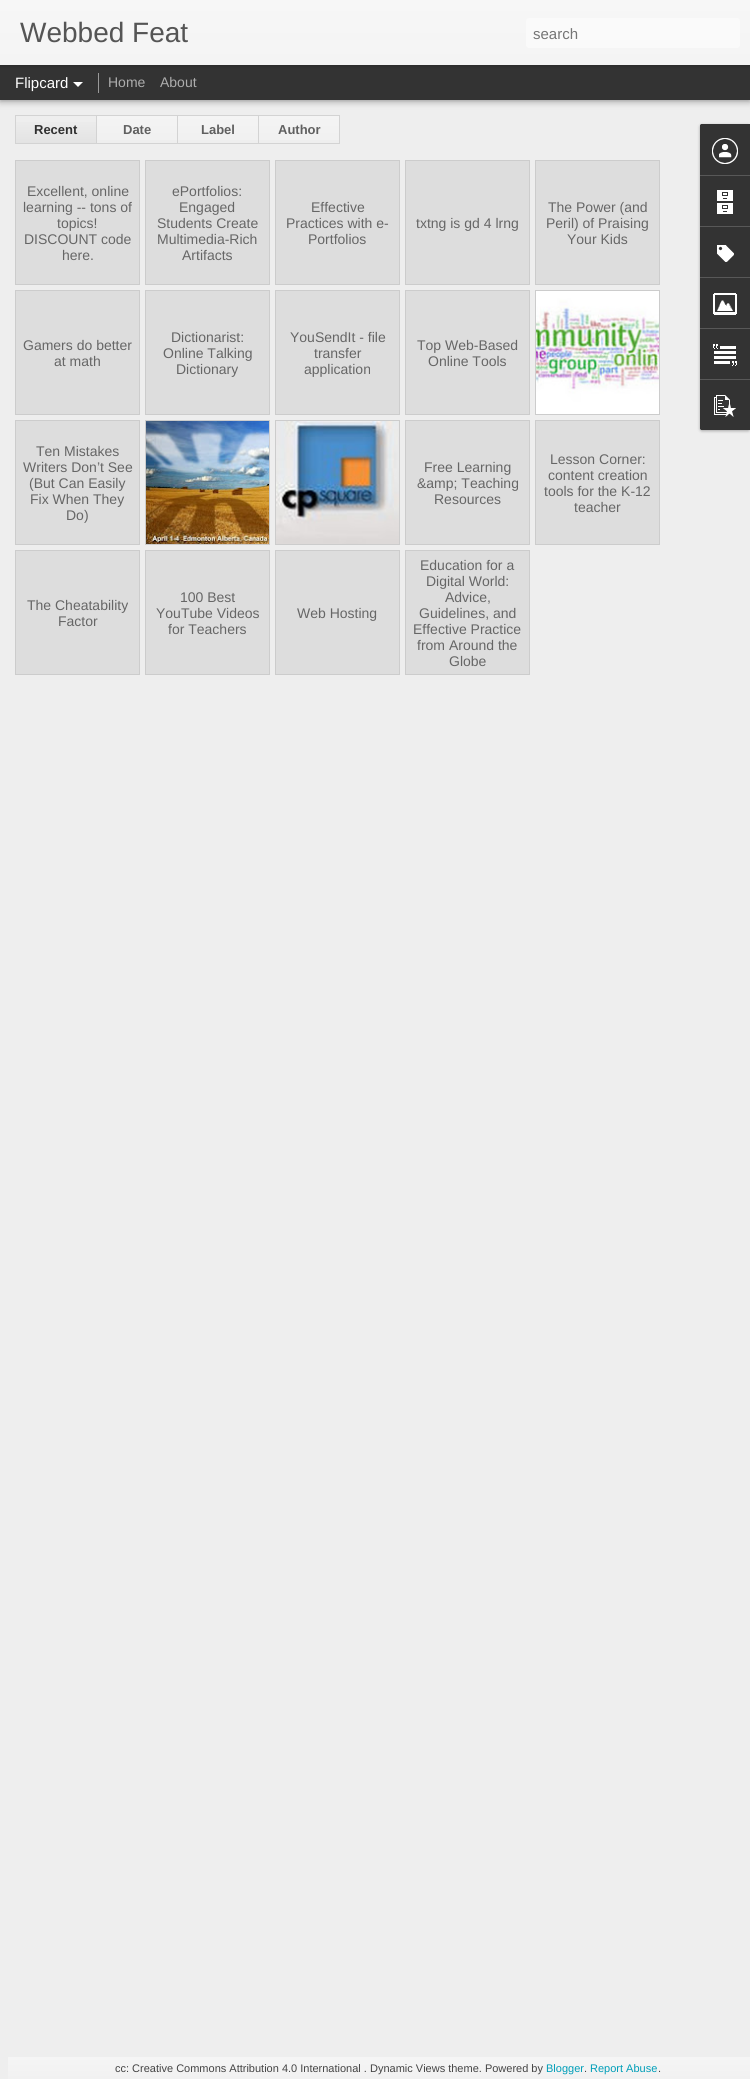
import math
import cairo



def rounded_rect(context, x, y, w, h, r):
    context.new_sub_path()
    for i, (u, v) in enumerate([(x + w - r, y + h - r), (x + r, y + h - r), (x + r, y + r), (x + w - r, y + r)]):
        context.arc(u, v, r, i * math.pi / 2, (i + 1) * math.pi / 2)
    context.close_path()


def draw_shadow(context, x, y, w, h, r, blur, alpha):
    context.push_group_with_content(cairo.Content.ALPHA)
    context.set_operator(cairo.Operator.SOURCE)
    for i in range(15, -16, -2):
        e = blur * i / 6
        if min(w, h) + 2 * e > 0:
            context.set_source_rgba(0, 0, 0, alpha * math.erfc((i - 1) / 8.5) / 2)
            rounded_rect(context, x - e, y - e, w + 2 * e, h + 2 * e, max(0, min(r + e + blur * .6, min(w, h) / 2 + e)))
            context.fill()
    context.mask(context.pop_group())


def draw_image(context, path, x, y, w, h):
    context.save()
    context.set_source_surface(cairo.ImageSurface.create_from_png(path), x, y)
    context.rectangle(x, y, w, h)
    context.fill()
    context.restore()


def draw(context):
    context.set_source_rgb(238 / 255, 238 / 255, 238 / 255)
    context.paint()
    context.set_source_rgb(0, 0, 0)
    draw_shadow(context, 0, 65, 750, 35, 0, 4, 0.5)
    context.set_source_rgb(51 / 255, 51 / 255, 51 / 255)
    context.rectangle(0, 65, 750, 35)
    context.fill()
    context.set_source_rgb(153 / 255, 153 / 255, 153 / 255)
    context.rectangle(98, 73, 1, 20)
    context.fill()
    context.set_source_rgb(0, 0, 0)
    draw_shadow(context, 0, 0, 750, 65, 0, 2.5, 0.3)
    gradient = cairo.LinearGradient(0, 0, 0, 65)
    gradient.add_color_stop_rgba(0, 247 / 255, 247 / 255, 247 / 255, 1)
    gradient.add_color_stop_rgba(1, 244 / 255, 244 / 255, 244 / 255, 1)
    context.set_source(gradient)
    context.rectangle(0, 0, 750, 65)
    context.fill()
    context.set_source_rgb(250 / 255, 250 / 255, 250 / 255)
    rounded_rect(context, 526, 18, 214, 30, 3)
    context.fill()
    context.set_source_rgb(1, 1, 1)
    context.new_path()
    context.move_to(73, 82)
    context.line_to(83, 82)
    context.line_to(78, 87)
    context.close_path()
    context.fill()
    gradient = cairo.LinearGradient(56, 116, 56, 143)
    gradient.add_color_stop_rgba(0, 238 / 255, 238 / 255, 238 / 255, 1)
    gradient.add_color_stop_rgba(1, 227 / 255, 227 / 255, 227 / 255, 1)
    context.set_source(gradient)
    context.rectangle(16, 122, 80, 21)
    context.fill()
    context.rectangle(15.5, 115.5, 81, 28)
    context.set_source_rgb(211 / 255, 211 / 255, 211 / 255)
    context.set_line_width(1)
    context.stroke()
    gradient = cairo.LinearGradient(137, 116, 137, 143)
    gradient.add_color_stop_rgba(0, 244 / 255, 244 / 255, 244 / 255, 1)
    gradient.add_color_stop_rgba(1, 240 / 255, 240 / 255, 240 / 255, 1)
    context.set_source(gradient)
    context.rectangle(97, 116, 80, 24)
    context.fill()
    context.rectangle(96.5, 115.5, 81, 28)
    context.set_source_rgb(211 / 255, 211 / 255, 211 / 255)
    context.stroke()
    gradient = cairo.LinearGradient(218, 116, 218, 143)
    gradient.add_color_stop_rgba(0, 244 / 255, 244 / 255, 244 / 255, 1)
    gradient.add_color_stop_rgba(1, 240 / 255, 240 / 255, 240 / 255, 1)
    context.set_source(gradient)
    context.rectangle(178, 116, 80, 24)
    context.fill()
    context.rectangle(177.5, 115.5, 81, 28)
    context.set_source_rgb(211 / 255, 211 / 255, 211 / 255)
    context.stroke()
    gradient = cairo.LinearGradient(299, 116, 299, 143)
    gradient.add_color_stop_rgba(0, 244 / 255, 244 / 255, 244 / 255, 1)
    gradient.add_color_stop_rgba(1, 240 / 255, 240 / 255, 240 / 255, 1)
    context.set_source(gradient)
    context.rectangle(259, 116, 80, 24)
    context.fill()
    context.rectangle(258.5, 115.5, 81, 28)
    context.set_source_rgb(211 / 255, 211 / 255, 211 / 255)
    context.stroke()
    context.rectangle(15.5, 160.5, 124, 124)
    context.set_source_rgb(204 / 255, 204 / 255, 204 / 255)
    context.stroke()
    context.set_source_rgb(221 / 255, 221 / 255, 221 / 255)
    context.rectangle(16, 161, 123, 123)
    context.fill()
    context.rectangle(145.5, 160.5, 124, 124)
    context.set_source_rgb(204 / 255, 204 / 255, 204 / 255)
    context.stroke()
    context.set_source_rgb(221 / 255, 221 / 255, 221 / 255)
    context.rectangle(146, 161, 123, 123)
    context.fill()
    context.rectangle(275.5, 160.5, 124, 124)
    context.set_source_rgb(204 / 255, 204 / 255, 204 / 255)
    context.stroke()
    context.set_source_rgb(221 / 255, 221 / 255, 221 / 255)
    context.rectangle(276, 161, 123, 123)
    context.fill()
    context.rectangle(405.5, 160.5, 124, 124)
    context.set_source_rgb(204 / 255, 204 / 255, 204 / 255)
    context.stroke()
    context.set_source_rgb(221 / 255, 221 / 255, 221 / 255)
    context.rectangle(406, 161, 123, 123)
    context.fill()
    context.rectangle(535.5, 160.5, 124, 124)
    context.set_source_rgb(204 / 255, 204 / 255, 204 / 255)
    context.stroke()
    context.set_source_rgb(221 / 255, 221 / 255, 221 / 255)
    context.rectangle(536, 161, 123, 123)
    context.fill()
    context.rectangle(15.5, 290.5, 124, 124)
    context.set_source_rgb(204 / 255, 204 / 255, 204 / 255)
    context.stroke()
    context.set_source_rgb(221 / 255, 221 / 255, 221 / 255)
    context.rectangle(16, 291, 123, 123)
    context.fill()
    context.rectangle(145.5, 290.5, 124, 124)
    context.set_source_rgb(204 / 255, 204 / 255, 204 / 255)
    context.stroke()
    context.set_source_rgb(221 / 255, 221 / 255, 221 / 255)
    context.rectangle(146, 291, 123, 123)
    context.fill()
    context.rectangle(275.5, 290.5, 124, 124)
    context.set_source_rgb(204 / 255, 204 / 255, 204 / 255)
    context.stroke()
    context.set_source_rgb(221 / 255, 221 / 255, 221 / 255)
    context.rectangle(276, 291, 123, 123)
    context.fill()
    context.rectangle(405.5, 290.5, 124, 124)
    context.set_source_rgb(204 / 255, 204 / 255, 204 / 255)
    context.stroke()
    context.set_source_rgb(221 / 255, 221 / 255, 221 / 255)
    context.rectangle(406, 291, 123, 123)
    context.fill()
    context.rectangle(535.5, 290.5, 124, 124)
    context.set_source_rgb(204 / 255, 204 / 255, 204 / 255)
    context.stroke()
    draw_image(context, "images/1.png", 536, 291, 123, 123)
    context.rectangle(15.5, 420.5, 124, 124)
    context.stroke()
    context.set_source_rgb(221 / 255, 221 / 255, 221 / 255)
    context.rectangle(16, 421, 123, 123)
    context.fill()
    context.rectangle(145.5, 420.5, 124, 124)
    context.set_source_rgb(204 / 255, 204 / 255, 204 / 255)
    context.stroke()
    draw_image(context, "images/2.png", 146, 421, 123, 123)
    context.rectangle(275.5, 420.5, 124, 124)
    context.stroke()
    draw_image(context, "images/3.png", 276, 421, 123, 123)
    context.rectangle(405.5, 420.5, 124, 124)
    context.stroke()
    context.set_source_rgb(221 / 255, 221 / 255, 221 / 255)
    context.rectangle(406, 421, 123, 123)
    context.fill()
    context.rectangle(535.5, 420.5, 124, 124)
    context.set_source_rgb(204 / 255, 204 / 255, 204 / 255)
    context.stroke()
    context.set_source_rgb(221 / 255, 221 / 255, 221 / 255)
    context.rectangle(536, 421, 123, 123)
    context.fill()
    context.rectangle(15.5, 550.5, 124, 124)
    context.set_source_rgb(204 / 255, 204 / 255, 204 / 255)
    context.stroke()
    context.set_source_rgb(221 / 255, 221 / 255, 221 / 255)
    context.rectangle(16, 551, 123, 123)
    context.fill()
    context.rectangle(145.5, 550.5, 124, 124)
    context.set_source_rgb(204 / 255, 204 / 255, 204 / 255)
    context.stroke()
    context.set_source_rgb(221 / 255, 221 / 255, 221 / 255)
    context.rectangle(146, 551, 123, 123)
    context.fill()
    context.rectangle(275.5, 550.5, 124, 124)
    context.set_source_rgb(204 / 255, 204 / 255, 204 / 255)
    context.stroke()
    context.set_source_rgb(221 / 255, 221 / 255, 221 / 255)
    context.rectangle(276, 551, 123, 123)
    context.fill()
    context.rectangle(405.5, 550.5, 124, 124)
    context.set_source_rgb(204 / 255, 204 / 255, 204 / 255)
    context.stroke()
    context.set_source_rgb(221 / 255, 221 / 255, 221 / 255)
    context.rectangle(406, 551, 123, 123)
    context.fill()
    context.set_source_rgb(0, 0, 0)
    draw_shadow(context, 700, 125, 50, 306, 2, 1.5, 0.3)
    context.set_source_rgb(51 / 255, 51 / 255, 51 / 255)
    context.new_path()
    context.move_to(702, 124)
    context.line_to(750, 124)
    context.line_to(750, 430)
    context.line_to(702, 430)
    context.curve_to(701, 430, 700, 429, 700, 428)
    context.line_to(700, 126)
    context.curve_to(700, 125, 701, 124, 702, 124)
    context.close_path()
    context.fill()
    context.new_path()
    context.move_to(702, 124)
    context.line_to(750, 124)
    context.line_to(750, 175)
    context.line_to(700, 175)
    context.line_to(700, 126)
    context.curve_to(700, 125, 701, 124, 702, 124)
    context.close_path()
    context.fill()
    draw_image(context, "images/4.png", 712, 138, 26, 26)
    context.set_source_rgb(88 / 255, 88 / 255, 88 / 255)
    context.rectangle(700, 175, 50, 1)
    context.fill()
    draw_image(context, "images/5.png", 717, 190, 16, 24)
    context.rectangle(700, 226, 50, 1)
    context.fill()
    draw_image(context, "images/6.png", 717, 245, 17, 17)
    context.rectangle(700, 277, 50, 1)
    context.fill()
    draw_image(context, "images/7.png", 713, 293, 24, 22)
    context.rectangle(700, 328, 50, 1)
    context.fill()
    draw_image(context, "images/8.png", 713, 344, 24, 22)
    context.set_source_rgb(51 / 255, 51 / 255, 51 / 255)
    context.new_path()
    context.move_to(700, 379)
    context.line_to(750, 379)
    context.line_to(750, 430)
    context.line_to(702, 430)
    context.curve_to(701, 430, 700, 429, 700, 428)
    context.close_path()
    context.fill()
    context.set_source_rgb(88 / 255, 88 / 255, 88 / 255)
    context.rectangle(700, 379, 50, 1)
    context.fill()
    draw_image(context, "images/9.png", 714, 395, 22, 22)
    gradient = cairo.LinearGradient(388, 2057, 388, 2079)
    gradient.add_color_stop_rgba(0, 245 / 255, 245 / 255, 245 / 255, 1)
    gradient.add_color_stop_rgba(1, 241 / 255, 241 / 255, 241 / 255, 1)
    context.set_source(gradient)
    context.rectangle(8, 2057, 742, 22)
    context.fill()
    context.select_font_face("Liberation Sans")
    context.set_font_size(28)
    context.set_source_rgb(85 / 255, 85 / 255, 85 / 255)
    context.move_to(20, 42)
    context.show_text("Webbed Feat")
    context.set_font_size(15)
    context.set_source_rgb(117 / 255, 117 / 255, 117 / 255)
    context.move_to(533, 39)
    context.show_text("search")
    context.set_source_rgb(1, 1, 1)
    context.move_to(15, 88)
    context.show_text("Flipcard")
    context.set_font_size(14)
    context.set_source_rgb(173 / 255, 173 / 255, 173 / 255)
    context.move_to(108, 87)
    context.show_text("Home")
    context.move_to(160, 87)
    context.show_text("About")
    context.select_font_face("Liberation Sans", cairo.FontSlant.NORMAL, cairo.FontWeight.BOLD)
    context.set_font_size(13)
    context.set_source_rgb(48 / 255, 48 / 255, 48 / 255)
    context.move_to(34, 134)
    context.show_text("Recent")
    context.set_source_rgb(96 / 255, 96 / 255, 96 / 255)
    context.move_to(123, 134)
    context.show_text("Date")
    context.move_to(201, 134)
    context.show_text("Label")
    context.move_to(278, 134)
    context.show_text("Author")
    context.select_font_face("Liberation Sans")
    context.set_font_size(14)
    context.set_source_rgb(102 / 255, 102 / 255, 102 / 255)
    context.move_to(27, 196)
    context.show_text("Excellent, online")
    context.move_to(23, 212)
    context.show_text("learning -- tons of")
    context.move_to(57, 228)
    context.show_text("topics!")
    context.move_to(24, 244)
    context.show_text("DISCOUNT code")
    context.move_to(62, 260)
    context.show_text("here.")
    context.move_to(172, 196)
    context.show_text("ePortfolios:")
    context.move_to(179, 212)
    context.show_text("Engaged")
    context.move_to(157, 228)
    context.show_text("Students Create")
    context.move_to(157, 244)
    context.show_text("Multimedia-Rich")
    context.move_to(182, 260)
    context.show_text("Artifacts")
    context.move_to(311, 212)
    context.show_text("Effective")
    context.move_to(286, 228)
    context.show_text("Practices with e-")
    context.move_to(308, 244)
    context.show_text("Portfolios")
    context.move_to(416, 228)
    context.show_text("txtng is gd 4 lrng")
    context.move_to(548, 212)
    context.show_text("The Power (and")
    context.move_to(546, 228)
    context.show_text("Peril) of Praising")
    context.move_to(567, 244)
    context.show_text("Your Kids")
    context.move_to(23, 350)
    context.show_text("Gamers do better")
    context.move_to(54, 366)
    context.show_text("at math")
    context.move_to(171, 342)
    context.show_text("Dictionarist:")
    context.move_to(163, 358)
    context.show_text("Online Talking")
    context.move_to(176, 374)
    context.show_text("Dictionary")
    context.move_to(290, 342)
    context.show_text("YouSendIt - file")
    context.move_to(314, 358)
    context.show_text("transfer")
    context.move_to(304, 374)
    context.show_text("application")
    context.move_to(417, 350)
    context.show_text("Top Web-Based")
    context.move_to(428, 366)
    context.show_text("Online Tools")
    context.move_to(36, 456)
    context.show_text("Ten Mistakes")
    context.move_to(23, 472)
    context.show_text("Writers Don’t See")
    context.move_to(29, 488)
    context.show_text("(But Can Easily")
    context.move_to(30, 504)
    context.show_text("Fix When They")
    context.move_to(66, 520)
    context.show_text("Do)")
    context.move_to(424, 472)
    context.show_text("Free Learning")
    context.move_to(417, 488)
    context.show_text("&amp; Teaching")
    context.move_to(434, 504)
    context.show_text("Resources")
    context.move_to(550, 464)
    context.show_text("Lesson Corner:")
    context.move_to(548, 480)
    context.show_text("content creation")
    context.move_to(544, 496)
    context.show_text("tools for the K-12")
    context.move_to(574, 512)
    context.show_text("teacher")
    context.move_to(27, 610)
    context.show_text("The Cheatability")
    context.move_to(58, 626)
    context.show_text("Factor")
    context.move_to(180, 602)
    context.show_text("100 Best")
    context.move_to(156, 618)
    context.show_text("YouTube Videos")
    context.move_to(168, 634)
    context.show_text("for Teachers")
    context.move_to(297, 618)
    context.show_text("Web Hosting")
    context.move_to(420, 570)
    context.show_text("Education for a")
    context.move_to(426, 586)
    context.show_text("Digital World:")
    context.move_to(445, 602)
    context.show_text("Advice,")
    context.move_to(419, 618)
    context.show_text("Guidelines, and")
    context.move_to(413, 634)
    context.show_text("Effective Practice")
    context.move_to(417, 650)
    context.show_text("from Around the")
    context.move_to(449, 666)
    context.show_text("Globe")
    context.set_font_size(11)
    context.set_source_rgb(68 / 255, 68 / 255, 68 / 255)
    context.move_to(115, 2072)
    context.show_text("cc: Creative Commons Attribution 4.0 International . Dynamic Views theme. Powered by")
    context.set_source_rgb(0, 158 / 255, 184 / 255)
    context.move_to(546, 2072)
    context.show_text("Blogger")
    context.set_source_rgb(68 / 255, 68 / 255, 68 / 255)
    context.move_to(584, 2072)
    context.show_text(".")
    context.set_source_rgb(0, 158 / 255, 184 / 255)
    context.move_to(590, 2072)
    context.show_text("Report Abuse")
    context.set_source_rgb(68 / 255, 68 / 255, 68 / 255)
    context.move_to(658, 2072)
    context.show_text(".")


surface = cairo.ImageSurface(cairo.Format.RGB24, 750, 2079)
context = cairo.Context(surface)
options = cairo.FontOptions()
options.set_hint_metrics(cairo.HintMetrics.OFF)
options.set_hint_style(cairo.HintStyle.NONE)
context.set_font_options(options)
context.set_miter_limit(4)
draw(context)
surface.write_to_png("out.png")
